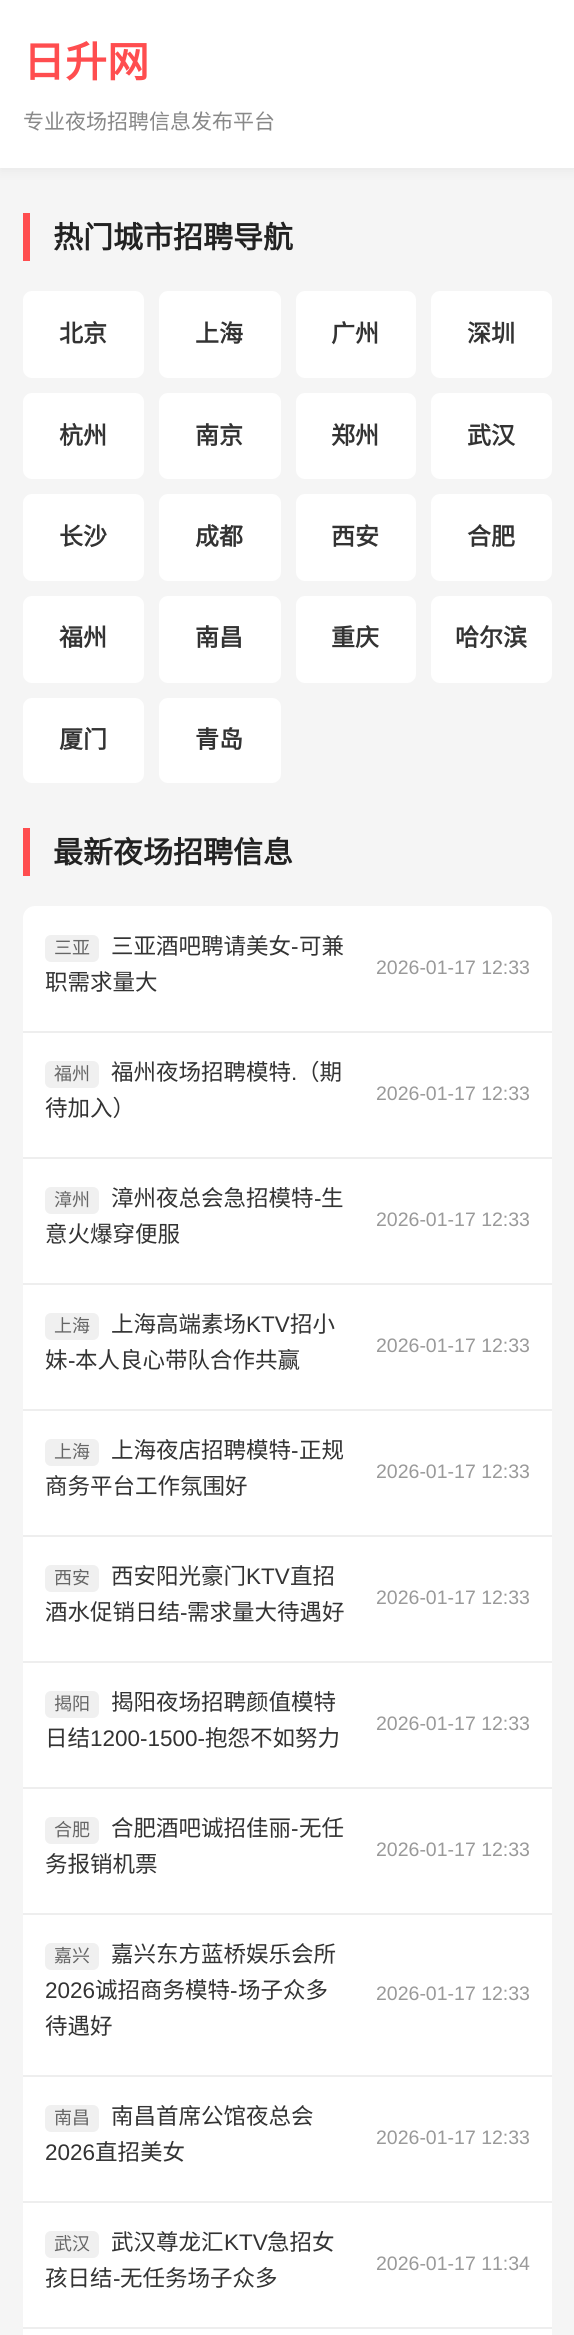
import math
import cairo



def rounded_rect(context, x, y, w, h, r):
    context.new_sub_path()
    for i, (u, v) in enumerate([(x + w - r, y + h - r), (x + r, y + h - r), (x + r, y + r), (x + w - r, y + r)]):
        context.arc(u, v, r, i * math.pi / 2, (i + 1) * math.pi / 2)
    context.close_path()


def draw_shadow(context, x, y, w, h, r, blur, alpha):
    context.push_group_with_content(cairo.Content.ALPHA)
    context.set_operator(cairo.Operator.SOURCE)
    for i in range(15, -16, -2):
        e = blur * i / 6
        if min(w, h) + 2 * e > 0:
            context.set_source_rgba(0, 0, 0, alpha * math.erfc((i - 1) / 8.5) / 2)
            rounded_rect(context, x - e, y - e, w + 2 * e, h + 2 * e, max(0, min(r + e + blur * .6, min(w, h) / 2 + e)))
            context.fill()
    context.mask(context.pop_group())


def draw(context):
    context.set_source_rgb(245 / 255, 245 / 255, 245 / 255)
    context.paint()
    context.set_source_rgb(0, 0, 0)
    draw_shadow(context, 0, 3, 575, 168, 0, 6, 0.05)
    context.set_source_rgb(1, 1, 1)
    context.rectangle(0, 0, 574, 168)
    context.fill()
    context.set_source_rgb(1, 77 / 255, 79 / 255)
    context.rectangle(23, 213, 7, 48)
    context.fill()
    context.set_source_rgb(1, 1, 1)
    rounded_rect(context, 23, 291, 121, 87, 9)
    context.fill()
    rounded_rect(context, 159, 291, 122, 87, 9)
    context.fill()
    rounded_rect(context, 296, 291, 120, 87, 9)
    context.fill()
    rounded_rect(context, 431, 291, 121, 87, 9)
    context.fill()
    rounded_rect(context, 23, 393, 121, 86, 9)
    context.fill()
    rounded_rect(context, 159, 393, 122, 86, 9)
    context.fill()
    rounded_rect(context, 296, 393, 120, 86, 9)
    context.fill()
    rounded_rect(context, 431, 393, 121, 86, 9)
    context.fill()
    rounded_rect(context, 23, 494, 121, 87, 9)
    context.fill()
    rounded_rect(context, 159, 494, 122, 87, 9)
    context.fill()
    rounded_rect(context, 296, 494, 120, 87, 9)
    context.fill()
    rounded_rect(context, 431, 494, 121, 87, 9)
    context.fill()
    rounded_rect(context, 23, 596, 121, 87, 9)
    context.fill()
    rounded_rect(context, 159, 596, 122, 87, 9)
    context.fill()
    rounded_rect(context, 296, 596, 120, 87, 9)
    context.fill()
    rounded_rect(context, 431, 596, 121, 87, 9)
    context.fill()
    rounded_rect(context, 23, 698, 121, 85, 9)
    context.fill()
    rounded_rect(context, 159, 698, 122, 85, 9)
    context.fill()
    context.set_source_rgb(1, 77 / 255, 79 / 255)
    context.rectangle(23, 828, 7, 48)
    context.fill()
    context.set_source_rgb(1, 1, 1)
    rounded_rect(context, 23, 906, 529, 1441, 12)
    context.fill()
    context.set_source_rgb(238 / 255, 238 / 255, 238 / 255)
    context.rectangle(23, 1031, 529, 2)
    context.fill()
    context.set_source_rgb(240 / 255, 240 / 255, 240 / 255)
    rounded_rect(context, 45, 935, 54, 27, 6)
    context.fill()
    context.set_source_rgb(238 / 255, 238 / 255, 238 / 255)
    context.rectangle(23, 1157, 529, 2)
    context.fill()
    context.set_source_rgb(240 / 255, 240 / 255, 240 / 255)
    rounded_rect(context, 45, 1061, 54, 27, 6)
    context.fill()
    context.set_source_rgb(238 / 255, 238 / 255, 238 / 255)
    context.rectangle(23, 1283, 529, 2)
    context.fill()
    context.set_source_rgb(240 / 255, 240 / 255, 240 / 255)
    rounded_rect(context, 45, 1187, 54, 27, 6)
    context.fill()
    context.set_source_rgb(238 / 255, 238 / 255, 238 / 255)
    context.rectangle(23, 1409, 529, 2)
    context.fill()
    context.set_source_rgb(240 / 255, 240 / 255, 240 / 255)
    rounded_rect(context, 45, 1313, 54, 27, 6)
    context.fill()
    context.set_source_rgb(238 / 255, 238 / 255, 238 / 255)
    context.rectangle(23, 1535, 529, 2)
    context.fill()
    context.set_source_rgb(240 / 255, 240 / 255, 240 / 255)
    rounded_rect(context, 45, 1439, 54, 27, 6)
    context.fill()
    context.set_source_rgb(238 / 255, 238 / 255, 238 / 255)
    context.rectangle(23, 1661, 529, 2)
    context.fill()
    context.set_source_rgb(240 / 255, 240 / 255, 240 / 255)
    rounded_rect(context, 45, 1565, 54, 27, 6)
    context.fill()
    context.set_source_rgb(238 / 255, 238 / 255, 238 / 255)
    context.rectangle(23, 1787, 529, 2)
    context.fill()
    context.set_source_rgb(240 / 255, 240 / 255, 240 / 255)
    rounded_rect(context, 45, 1691, 54, 27, 6)
    context.fill()
    context.set_source_rgb(238 / 255, 238 / 255, 238 / 255)
    context.rectangle(23, 1913, 529, 2)
    context.fill()
    context.set_source_rgb(240 / 255, 240 / 255, 240 / 255)
    rounded_rect(context, 45, 1817, 54, 27, 6)
    context.fill()
    context.set_source_rgb(238 / 255, 238 / 255, 238 / 255)
    context.rectangle(23, 2075, 529, 2)
    context.fill()
    context.set_source_rgb(240 / 255, 240 / 255, 240 / 255)
    rounded_rect(context, 45, 1943, 54, 27, 6)
    context.fill()
    context.set_source_rgb(238 / 255, 238 / 255, 238 / 255)
    context.rectangle(23, 2201, 529, 2)
    context.fill()
    context.set_source_rgb(240 / 255, 240 / 255, 240 / 255)
    rounded_rect(context, 45, 2105, 54, 27, 6)
    context.fill()
    context.set_source_rgb(238 / 255, 238 / 255, 238 / 255)
    context.rectangle(23, 2327, 529, 2)
    context.fill()
    context.set_source_rgb(240 / 255, 240 / 255, 240 / 255)
    rounded_rect(context, 45, 2231, 54, 27, 6)
    context.fill()
    context.select_font_face("Noto Sans CJK SC", cairo.FontSlant.NORMAL, cairo.FontWeight.BOLD)
    context.set_font_size(42)
    context.set_source_rgb(1, 77 / 255, 79 / 255)
    context.move_to(23, 77)
    context.show_text("日升网")
    context.select_font_face("Noto Sans CJK SC")
    context.set_font_size(21)
    context.set_source_rgb(136 / 255, 136 / 255, 136 / 255)
    context.move_to(23, 129)
    context.show_text("专业夜场招聘信息发布平台")
    context.select_font_face("Noto Sans CJK SC", cairo.FontSlant.NORMAL, cairo.FontWeight.BOLD)
    context.set_font_size(30)
    context.set_source_rgb(34 / 255, 34 / 255, 34 / 255)
    context.move_to(53, 248)
    context.show_text("热门城市招聘导航")
    context.set_font_size(24)
    context.set_source_rgb(51 / 255, 51 / 255, 51 / 255)
    context.move_to(59, 342)
    context.show_text("北京")
    context.move_to(195, 342)
    context.show_text("上海")
    context.move_to(331, 342)
    context.show_text("广州")
    context.move_to(467, 342)
    context.show_text("深圳")
    context.move_to(59, 444)
    context.show_text("杭州")
    context.move_to(195, 444)
    context.show_text("南京")
    context.move_to(331, 444)
    context.show_text("郑州")
    context.move_to(467, 444)
    context.show_text("武汉")
    context.move_to(59, 545)
    context.show_text("长沙")
    context.move_to(195, 545)
    context.show_text("成都")
    context.move_to(331, 545)
    context.show_text("西安")
    context.move_to(467, 545)
    context.show_text("合肥")
    context.move_to(59, 646)
    context.show_text("福州")
    context.move_to(195, 646)
    context.show_text("南昌")
    context.move_to(331, 646)
    context.show_text("重庆")
    context.move_to(455, 646)
    context.show_text("哈尔滨")
    context.move_to(59, 748)
    context.show_text("厦门")
    context.move_to(195, 748)
    context.show_text("青岛")
    context.set_font_size(30)
    context.set_source_rgb(34 / 255, 34 / 255, 34 / 255)
    context.move_to(53, 863)
    context.show_text("最新夜场招聘信息")
    context.select_font_face("Noto Sans CJK SC")
    context.set_font_size(18)
    context.set_source_rgb(102 / 255, 102 / 255, 102 / 255)
    context.move_to(54, 954)
    context.show_text("三亚")
    context.set_font_size(22.5)
    context.set_source_rgb(51 / 255, 51 / 255, 51 / 255)
    context.move_to(111, 954)
    context.show_text("三亚酒吧聘请美女")
    context.select_font_face("Liberation Sans")
    context.move_to(291, 954)
    context.show_text("-")
    context.select_font_face("Noto Sans CJK SC")
    context.move_to(299, 954)
    context.show_text("可兼")
    context.move_to(45, 990)
    context.show_text("职需求量大")
    context.select_font_face("Liberation Sans")
    context.set_font_size(19.5)
    context.set_source_rgb(153 / 255, 153 / 255, 153 / 255)
    context.move_to(376, 974)
    context.show_text("2026-01-17 12:33")
    context.select_font_face("Noto Sans CJK SC")
    context.set_font_size(18)
    context.set_source_rgb(102 / 255, 102 / 255, 102 / 255)
    context.move_to(54, 1080)
    context.show_text("福州")
    context.set_font_size(22.5)
    context.set_source_rgb(51 / 255, 51 / 255, 51 / 255)
    context.move_to(111, 1080)
    context.show_text("福州夜场招聘模特")
    context.select_font_face("Liberation Sans")
    context.move_to(291, 1080)
    context.show_text(".")
    context.select_font_face("Noto Sans CJK SC")
    context.move_to(297, 1080)
    context.show_text("（期")
    context.move_to(45, 1116)
    context.show_text("待加入）")
    context.select_font_face("Liberation Sans")
    context.set_font_size(19.5)
    context.set_source_rgb(153 / 255, 153 / 255, 153 / 255)
    context.move_to(376, 1100)
    context.show_text("2026-01-17 12:33")
    context.select_font_face("Noto Sans CJK SC")
    context.set_font_size(18)
    context.set_source_rgb(102 / 255, 102 / 255, 102 / 255)
    context.move_to(54, 1206)
    context.show_text("漳州")
    context.set_font_size(22.5)
    context.set_source_rgb(51 / 255, 51 / 255, 51 / 255)
    context.move_to(111, 1206)
    context.show_text("漳州夜总会急招模特")
    context.select_font_face("Liberation Sans")
    context.move_to(314, 1206)
    context.show_text("-")
    context.select_font_face("Noto Sans CJK SC")
    context.move_to(321, 1206)
    context.show_text("生")
    context.move_to(45, 1242)
    context.show_text("意火爆穿便服")
    context.select_font_face("Liberation Sans")
    context.set_font_size(19.5)
    context.set_source_rgb(153 / 255, 153 / 255, 153 / 255)
    context.move_to(376, 1226)
    context.show_text("2026-01-17 12:33")
    context.select_font_face("Noto Sans CJK SC")
    context.set_font_size(18)
    context.set_source_rgb(102 / 255, 102 / 255, 102 / 255)
    context.move_to(54, 1332)
    context.show_text("上海")
    context.set_font_size(22.5)
    context.set_source_rgb(51 / 255, 51 / 255, 51 / 255)
    context.move_to(111, 1332)
    context.show_text("上海高端素场")
    context.select_font_face("Liberation Sans")
    context.move_to(246, 1332)
    context.show_text("KTV")
    context.select_font_face("Noto Sans CJK SC")
    context.move_to(290, 1332)
    context.show_text("招小")
    context.move_to(45, 1368)
    context.show_text("妹")
    context.select_font_face("Liberation Sans")
    context.move_to(68, 1368)
    context.show_text("-")
    context.select_font_face("Noto Sans CJK SC")
    context.move_to(75, 1368)
    context.show_text("本人良心带队合作共赢")
    context.select_font_face("Liberation Sans")
    context.set_font_size(19.5)
    context.set_source_rgb(153 / 255, 153 / 255, 153 / 255)
    context.move_to(376, 1352)
    context.show_text("2026-01-17 12:33")
    context.select_font_face("Noto Sans CJK SC")
    context.set_font_size(18)
    context.set_source_rgb(102 / 255, 102 / 255, 102 / 255)
    context.move_to(54, 1458)
    context.show_text("上海")
    context.set_font_size(22.5)
    context.set_source_rgb(51 / 255, 51 / 255, 51 / 255)
    context.move_to(111, 1458)
    context.show_text("上海夜店招聘模特")
    context.select_font_face("Liberation Sans")
    context.move_to(291, 1458)
    context.show_text("-")
    context.select_font_face("Noto Sans CJK SC")
    context.move_to(299, 1458)
    context.show_text("正规")
    context.move_to(45, 1494)
    context.show_text("商务平台工作氛围好")
    context.select_font_face("Liberation Sans")
    context.set_font_size(19.5)
    context.set_source_rgb(153 / 255, 153 / 255, 153 / 255)
    context.move_to(376, 1478)
    context.show_text("2026-01-17 12:33")
    context.select_font_face("Noto Sans CJK SC")
    context.set_font_size(18)
    context.set_source_rgb(102 / 255, 102 / 255, 102 / 255)
    context.move_to(54, 1584)
    context.show_text("西安")
    context.set_font_size(22.5)
    context.set_source_rgb(51 / 255, 51 / 255, 51 / 255)
    context.move_to(111, 1584)
    context.show_text("西安阳光豪门")
    context.select_font_face("Liberation Sans")
    context.move_to(246, 1584)
    context.show_text("KTV")
    context.select_font_face("Noto Sans CJK SC")
    context.move_to(290, 1584)
    context.show_text("直招")
    context.move_to(45, 1620)
    context.show_text("酒水促销日结")
    context.select_font_face("Liberation Sans")
    context.move_to(180, 1620)
    context.show_text("-")
    context.select_font_face("Noto Sans CJK SC")
    context.move_to(187, 1620)
    context.show_text("需求量大待遇好")
    context.select_font_face("Liberation Sans")
    context.set_font_size(19.5)
    context.set_source_rgb(153 / 255, 153 / 255, 153 / 255)
    context.move_to(376, 1604)
    context.show_text("2026-01-17 12:33")
    context.select_font_face("Noto Sans CJK SC")
    context.set_font_size(18)
    context.set_source_rgb(102 / 255, 102 / 255, 102 / 255)
    context.move_to(54, 1710)
    context.show_text("揭阳")
    context.set_font_size(22.5)
    context.set_source_rgb(51 / 255, 51 / 255, 51 / 255)
    context.move_to(111, 1710)
    context.show_text("揭阳夜场招聘颜值模特")
    context.move_to(45, 1746)
    context.show_text("日结")
    context.select_font_face("Liberation Sans")
    context.move_to(90, 1746)
    context.show_text("1200-1500-")
    context.select_font_face("Noto Sans CJK SC")
    context.move_to(205, 1746)
    context.show_text("抱怨不如努力")
    context.select_font_face("Liberation Sans")
    context.set_font_size(19.5)
    context.set_source_rgb(153 / 255, 153 / 255, 153 / 255)
    context.move_to(376, 1730)
    context.show_text("2026-01-17 12:33")
    context.select_font_face("Noto Sans CJK SC")
    context.set_font_size(18)
    context.set_source_rgb(102 / 255, 102 / 255, 102 / 255)
    context.move_to(54, 1836)
    context.show_text("合肥")
    context.set_font_size(22.5)
    context.set_source_rgb(51 / 255, 51 / 255, 51 / 255)
    context.move_to(111, 1836)
    context.show_text("合肥酒吧诚招佳丽")
    context.select_font_face("Liberation Sans")
    context.move_to(291, 1836)
    context.show_text("-")
    context.select_font_face("Noto Sans CJK SC")
    context.move_to(299, 1836)
    context.show_text("无任")
    context.move_to(45, 1872)
    context.show_text("务报销机票")
    context.select_font_face("Liberation Sans")
    context.set_font_size(19.5)
    context.set_source_rgb(153 / 255, 153 / 255, 153 / 255)
    context.move_to(376, 1856)
    context.show_text("2026-01-17 12:33")
    context.select_font_face("Noto Sans CJK SC")
    context.set_font_size(18)
    context.set_source_rgb(102 / 255, 102 / 255, 102 / 255)
    context.move_to(54, 1962)
    context.show_text("嘉兴")
    context.set_font_size(22.5)
    context.set_source_rgb(51 / 255, 51 / 255, 51 / 255)
    context.move_to(111, 1962)
    context.show_text("嘉兴东方蓝桥娱乐会所")
    context.select_font_face("Liberation Sans")
    context.move_to(45, 1998)
    context.show_text("2026")
    context.select_font_face("Noto Sans CJK SC")
    context.move_to(95, 1998)
    context.show_text("诚招商务模特")
    context.select_font_face("Liberation Sans")
    context.move_to(230, 1998)
    context.show_text("-")
    context.select_font_face("Noto Sans CJK SC")
    context.move_to(238, 1998)
    context.show_text("场子众多")
    context.move_to(45, 2034)
    context.show_text("待遇好")
    context.select_font_face("Liberation Sans")
    context.set_font_size(19.5)
    context.set_source_rgb(153 / 255, 153 / 255, 153 / 255)
    context.move_to(376, 2000)
    context.show_text("2026-01-17 12:33")
    context.select_font_face("Noto Sans CJK SC")
    context.set_font_size(18)
    context.set_source_rgb(102 / 255, 102 / 255, 102 / 255)
    context.move_to(54, 2124)
    context.show_text("南昌")
    context.set_font_size(22.5)
    context.set_source_rgb(51 / 255, 51 / 255, 51 / 255)
    context.move_to(111, 2124)
    context.show_text("南昌首席公馆夜总会")
    context.select_font_face("Liberation Sans")
    context.move_to(45, 2160)
    context.show_text("2026")
    context.select_font_face("Noto Sans CJK SC")
    context.move_to(95, 2160)
    context.show_text("直招美女")
    context.select_font_face("Liberation Sans")
    context.set_font_size(19.5)
    context.set_source_rgb(153 / 255, 153 / 255, 153 / 255)
    context.move_to(376, 2144)
    context.show_text("2026-01-17 12:33")
    context.select_font_face("Noto Sans CJK SC")
    context.set_font_size(18)
    context.set_source_rgb(102 / 255, 102 / 255, 102 / 255)
    context.move_to(54, 2250)
    context.show_text("武汉")
    context.set_font_size(22.5)
    context.set_source_rgb(51 / 255, 51 / 255, 51 / 255)
    context.move_to(111, 2250)
    context.show_text("武汉尊龙汇")
    context.select_font_face("Liberation Sans")
    context.move_to(224, 2250)
    context.show_text("KTV")
    context.select_font_face("Noto Sans CJK SC")
    context.move_to(267, 2250)
    context.show_text("急招女")
    context.move_to(45, 2286)
    context.show_text("孩日结")
    context.select_font_face("Liberation Sans")
    context.move_to(113, 2286)
    context.show_text("-")
    context.select_font_face("Noto Sans CJK SC")
    context.move_to(120, 2286)
    context.show_text("无任务场子众多")
    context.select_font_face("Liberation Sans")
    context.set_font_size(19.5)
    context.set_source_rgb(153 / 255, 153 / 255, 153 / 255)
    context.move_to(376, 2270)
    context.show_text("2026-01-17 11:34")


surface = cairo.ImageSurface(cairo.Format.RGB24, 574, 2335)
context = cairo.Context(surface)
options = cairo.FontOptions()
options.set_hint_metrics(cairo.HintMetrics.OFF)
options.set_hint_style(cairo.HintStyle.NONE)
context.set_font_options(options)
context.set_miter_limit(4)
draw(context)
surface.write_to_png("out.png")
